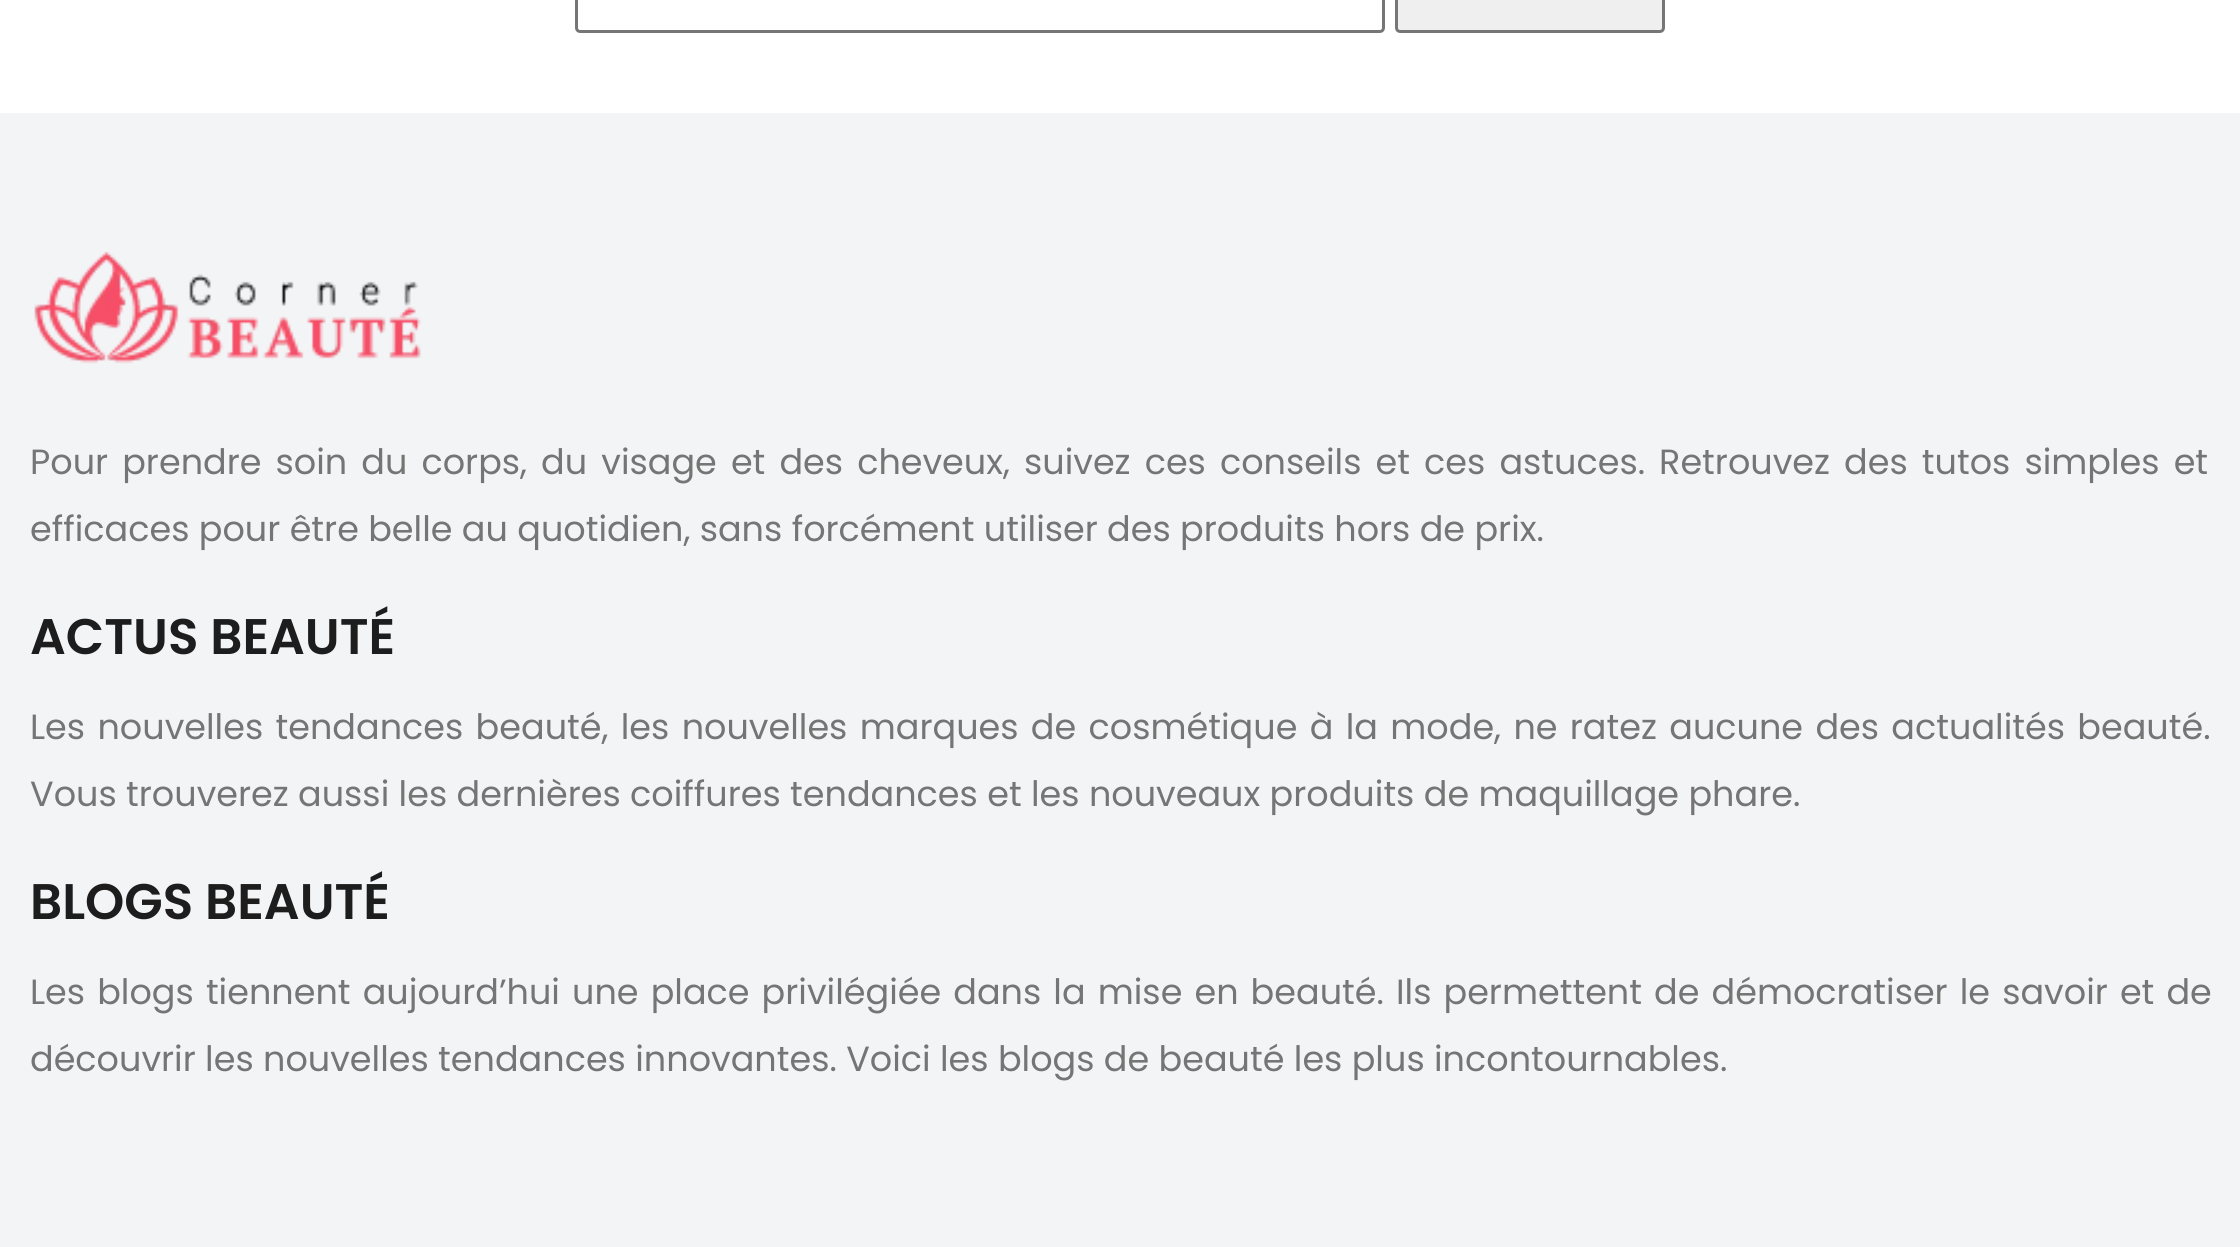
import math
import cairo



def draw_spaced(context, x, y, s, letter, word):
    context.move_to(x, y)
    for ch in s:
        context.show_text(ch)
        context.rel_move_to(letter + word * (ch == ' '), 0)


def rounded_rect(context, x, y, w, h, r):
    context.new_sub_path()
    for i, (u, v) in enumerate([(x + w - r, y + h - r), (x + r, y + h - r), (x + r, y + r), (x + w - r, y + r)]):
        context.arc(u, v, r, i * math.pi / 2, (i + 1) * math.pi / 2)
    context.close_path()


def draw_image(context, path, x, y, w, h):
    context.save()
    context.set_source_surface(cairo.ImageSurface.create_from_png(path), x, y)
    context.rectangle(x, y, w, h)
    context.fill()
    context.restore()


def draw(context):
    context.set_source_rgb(1, 1, 1)
    context.paint()
    rounded_rect(context, 576.5, -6.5, 807, 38, 3.5)
    context.set_source_rgb(118 / 255, 118 / 255, 118 / 255)
    context.set_line_width(3)
    context.stroke()
    context.set_source_rgb(239 / 255, 239 / 255, 239 / 255)
    rounded_rect(context, 1396.5, -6.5, 267, 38, 3.5)
    context.fill_preserve()
    context.set_source_rgb(118 / 255, 118 / 255, 118 / 255)
    context.stroke()
    context.set_source_rgb(243 / 255, 244 / 255, 246 / 255)
    context.rectangle(0, 113, 2240, 1134)
    context.fill()
    draw_image(context, "images/1.png", 34, 251, 387, 113)
    context.select_font_face("Poppins")
    context.set_font_size(35)
    context.set_source_rgb(117 / 255, 117 / 255, 117 / 255)
    draw_spaced(context, 30, 474, "Pour prendre soin du corps, du visage et des cheveux, suivez ces conseils et ces astuces. Retrouvez des tutos simples et", 0, 4.75)
    context.move_to(30, 541)
    context.show_text("efficaces pour être belle au quotidien, sans forcément utiliser des produits hors de prix.")
    context.select_font_face("Poppins SemiBold")
    context.set_font_size(50)
    context.set_source_rgb(29 / 255, 29 / 255, 29 / 255)
    context.move_to(30, 654)
    context.show_text("ACTUS BEAUTÉ")
    context.select_font_face("Poppins")
    context.set_font_size(35)
    context.set_source_rgb(117 / 255, 117 / 255, 117 / 255)
    draw_spaced(context, 30, 739, "Les nouvelles tendances beauté, les nouvelles marques de cosmétique à la mode, ne ratez aucune des actualités beauté.", 0, 3)
    context.move_to(30, 806)
    context.show_text("Vous trouverez aussi les dernières coiffures tendances et les nouveaux produits de maquillage phare.")
    context.select_font_face("Poppins SemiBold")
    context.set_font_size(50)
    context.set_source_rgb(29 / 255, 29 / 255, 29 / 255)
    context.move_to(30, 919)
    context.show_text("BLOGS BEAUTÉ")
    context.select_font_face("Poppins")
    context.set_font_size(35)
    context.set_source_rgb(117 / 255, 117 / 255, 117 / 255)
    draw_spaced(context, 30, 1004, "Les blogs tiennent aujourd’hui une place privilégiée dans la mise en beauté. Ils permettent de démocratiser le savoir et de", 0, 2.75)
    context.move_to(30, 1071)
    context.show_text("découvrir les nouvelles tendances innovantes. Voici les blogs de beauté les plus incontournables.")


surface = cairo.ImageSurface(cairo.Format.RGB24, 2240, 1247)
context = cairo.Context(surface)
options = cairo.FontOptions()
options.set_hint_metrics(cairo.HintMetrics.OFF)
options.set_hint_style(cairo.HintStyle.NONE)
context.set_font_options(options)
context.set_miter_limit(4)
draw(context)
surface.write_to_png("out.png")
